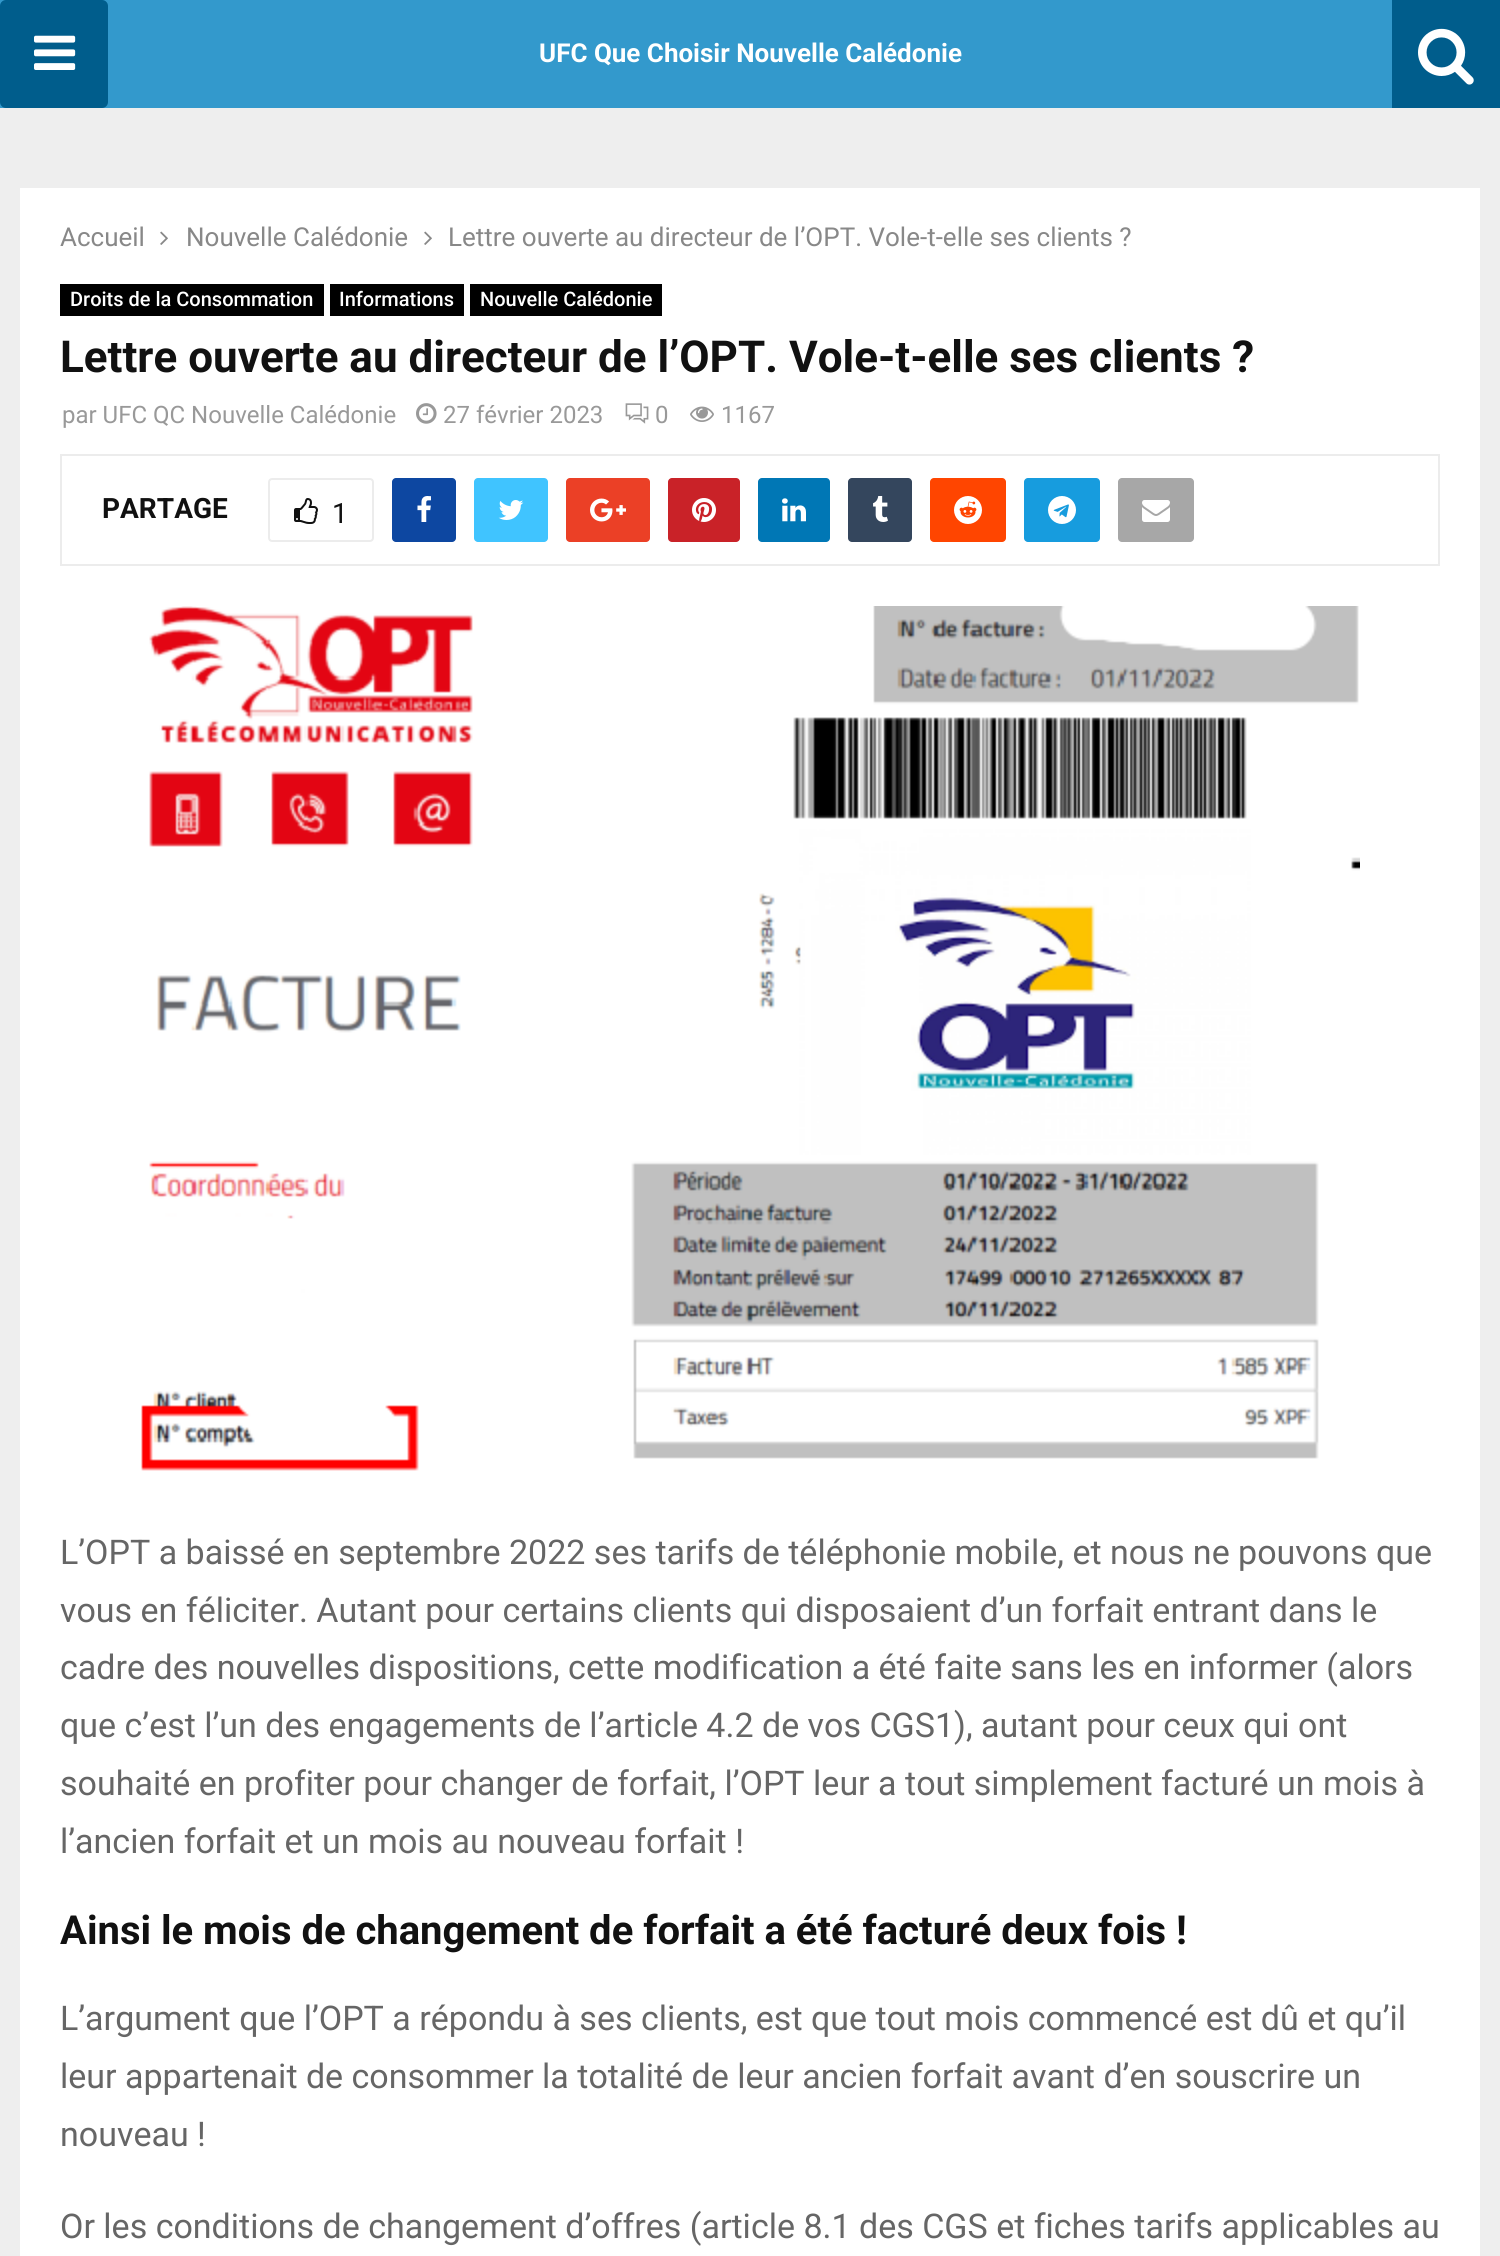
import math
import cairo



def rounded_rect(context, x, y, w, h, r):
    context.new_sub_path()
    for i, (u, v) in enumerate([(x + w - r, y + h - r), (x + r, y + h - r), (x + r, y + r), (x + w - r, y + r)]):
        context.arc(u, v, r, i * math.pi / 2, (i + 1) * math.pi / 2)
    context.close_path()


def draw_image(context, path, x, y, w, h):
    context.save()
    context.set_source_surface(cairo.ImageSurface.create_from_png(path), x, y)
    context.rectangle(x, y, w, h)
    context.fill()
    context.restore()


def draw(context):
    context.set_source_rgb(238 / 255, 238 / 255, 238 / 255)
    context.paint()
    context.set_source_rgb(51 / 255, 153 / 255, 204 / 255)
    context.rectangle(0, 0, 1392, 108)
    context.fill()
    context.set_source_rgb(0, 93 / 255, 140 / 255)
    rounded_rect(context, 0, 0, 108, 108, 6)
    context.fill()
    draw_image(context, "images/1.png", 34, 35, 42, 35)
    context.rectangle(1392, 0, 108, 108)
    context.fill()
    draw_image(context, "images/2.png", 1418, 28, 56, 57)
    context.set_source_rgb(1, 1, 1)
    context.rectangle(20, 188, 1460, 2068)
    context.fill()
    draw_image(context, "images/3.png", 160, 231, 8, 14)
    draw_image(context, "images/3.png", 424, 231, 8, 14)
    context.set_source_rgb(0, 0, 0)
    context.rectangle(60, 284, 264, 32)
    context.fill()
    context.rectangle(330, 284, 134, 32)
    context.fill()
    context.rectangle(470, 284, 192, 32)
    context.fill()
    draw_image(context, "images/4.png", 416, 403, 21, 21)
    draw_image(context, "images/5.png", 625, 403, 24, 21)
    draw_image(context, "images/6.png", 690, 406, 24, 16)
    context.rectangle(61, 455, 1378, 110)
    context.set_source_rgb(236 / 255, 236 / 255, 236 / 255)
    context.stroke()
    rounded_rect(context, 269, 479, 104, 62, 3)
    context.stroke()
    draw_image(context, "images/7.png", 294, 498, 24, 26)
    context.set_source_rgb(13 / 255, 71 / 255, 161 / 255)
    rounded_rect(context, 392, 478, 64, 64, 4)
    context.fill()
    draw_image(context, "images/8.png", 417, 496, 14, 26)
    context.set_source_rgb(64 / 255, 196 / 255, 1)
    rounded_rect(context, 474, 478, 74, 64, 4)
    context.fill()
    draw_image(context, "images/9.png", 498, 500, 26, 20)
    context.set_source_rgb(235 / 255, 64 / 255, 38 / 255)
    rounded_rect(context, 566, 478, 84, 64, 4)
    context.fill()
    draw_image(context, "images/10.png", 590, 498, 36, 24)
    context.set_source_rgb(201 / 255, 34 / 255, 40 / 255)
    rounded_rect(context, 668, 478, 72, 64, 4)
    context.fill()
    draw_image(context, "images/11.png", 692, 498, 24, 24)
    context.set_source_rgb(0, 119 / 255, 181 / 255)
    rounded_rect(context, 758, 478, 72, 64, 4)
    context.fill()
    draw_image(context, "images/12.png", 782, 498, 24, 24)
    context.set_source_rgb(52 / 255, 70 / 255, 93 / 255)
    rounded_rect(context, 848, 478, 64, 64, 4)
    context.fill()
    draw_image(context, "images/13.png", 873, 496, 15, 26)
    context.set_source_rgb(1, 69 / 255, 0)
    rounded_rect(context, 930, 478, 76, 64, 4)
    context.fill()
    draw_image(context, "images/14.png", 954, 496, 28, 28)
    context.set_source_rgb(23 / 255, 156 / 255, 222 / 255)
    rounded_rect(context, 1024, 478, 76, 64, 4)
    context.fill()
    draw_image(context, "images/15.png", 1048, 496, 28, 28)
    context.set_source_rgb(167 / 255, 167 / 255, 167 / 255)
    rounded_rect(context, 1118, 478, 76, 64, 4)
    context.fill()
    draw_image(context, "images/16.png", 1142, 500, 28, 22)
    draw_image(context, "images/17.png", 141, 606, 1219, 865)
    context.select_font_face("Roboto", cairo.FontSlant.NORMAL, cairo.FontWeight.BOLD)
    context.set_font_size(26)
    context.set_source_rgb(1, 1, 1)
    context.move_to(539, 62)
    context.show_text("UFC Que Choisir Nouvelle Calédonie")
    context.select_font_face("Roboto")
    context.set_source_rgb(136 / 255, 136 / 255, 136 / 255)
    context.move_to(60, 246)
    context.show_text("Accueil")
    context.move_to(186, 246)
    context.show_text("Nouvelle Calédonie")
    context.move_to(448, 246)
    context.show_text("Lettre ouverte au directeur de l’OPT. Vole-t-elle ses clients ?")
    context.select_font_face("Roboto Medium")
    context.set_font_size(20)
    context.set_source_rgb(1, 1, 1)
    context.move_to(70, 306)
    context.show_text("Droits de la Consommation")
    context.move_to(339, 306)
    context.show_text("Informations")
    context.move_to(480, 306)
    context.show_text("Nouvelle Calédonie")
    context.select_font_face("Roboto", cairo.FontSlant.NORMAL, cairo.FontWeight.BOLD)
    context.set_font_size(44)
    context.set_source_rgb(17 / 255, 17 / 255, 17 / 255)
    context.move_to(60, 372)
    context.show_text("Lettre ouverte au directeur de l’OPT. Vole-t-elle ses clients ?")
    context.select_font_face("Roboto")
    context.set_font_size(24)
    context.set_source_rgb(153 / 255, 153 / 255, 153 / 255)
    context.move_to(62, 423)
    context.show_text("par UFC QC Nouvelle Calédonie")
    context.move_to(443, 423)
    context.show_text("27 février 2023")
    context.move_to(655, 423)
    context.show_text("0")
    context.move_to(721, 423)
    context.show_text("1167")
    context.select_font_face("Roboto", cairo.FontSlant.NORMAL, cairo.FontWeight.BOLD)
    context.set_font_size(28)
    context.set_source_rgb(17 / 255, 17 / 255, 17 / 255)
    context.move_to(102, 518)
    context.show_text("PARTAGE")
    context.select_font_face("Roboto")
    context.move_to(332, 523)
    context.show_text("1")
    context.set_font_size(34)
    context.set_source_rgb(102 / 255, 102 / 255, 102 / 255)
    context.move_to(60, 1564)
    context.show_text("L’OPT a baissé en septembre 2022 ses tarifs de téléphonie mobile, et nous ne pouvons que")
    context.move_to(60, 1622)
    context.show_text("vous en féliciter. Autant pour certains clients qui disposaient d’un forfait entrant dans le")
    context.move_to(60, 1679)
    context.show_text("cadre des nouvelles dispositions, cette modification a été faite sans les en informer (alors")
    context.move_to(60, 1737)
    context.show_text("que c’est l’un des engagements de l’article 4.2 de vos CGS1), autant pour ceux qui ont")
    context.move_to(60, 1795)
    context.show_text("souhaité en profiter pour changer de forfait, l’OPT leur a tout simplement facturé un mois à")
    context.move_to(60, 1853)
    context.show_text("l’ancien forfait et un mois au nouveau forfait !")
    context.select_font_face("Roboto", cairo.FontSlant.NORMAL, cairo.FontWeight.BOLD)
    context.set_font_size(40)
    context.set_source_rgb(17 / 255, 17 / 255, 17 / 255)
    context.move_to(60, 1944)
    context.show_text("Ainsi le mois de changement de forfait a été facturé deux fois !")
    context.select_font_face("Roboto")
    context.set_font_size(34)
    context.set_source_rgb(102 / 255, 102 / 255, 102 / 255)
    context.move_to(60, 2030)
    context.show_text("L’argument que l’OPT a répondu à ses clients, est que tout mois commencé est dû et qu’il")
    context.move_to(60, 2088)
    context.show_text("leur appartenait de consommer la totalité de leur ancien forfait avant d’en souscrire un")
    context.move_to(60, 2146)
    context.show_text("nouveau !")
    context.move_to(60, 2238)
    context.show_text("Or les conditions de changement d’offres (article 8.1 des CGS et fiches tarifs applicables au")


surface = cairo.ImageSurface(cairo.Format.RGB24, 1500, 2256)
context = cairo.Context(surface)
options = cairo.FontOptions()
options.set_hint_metrics(cairo.HintMetrics.OFF)
options.set_hint_style(cairo.HintStyle.NONE)
context.set_font_options(options)
context.set_miter_limit(4)
draw(context)
surface.write_to_png("out.png")
